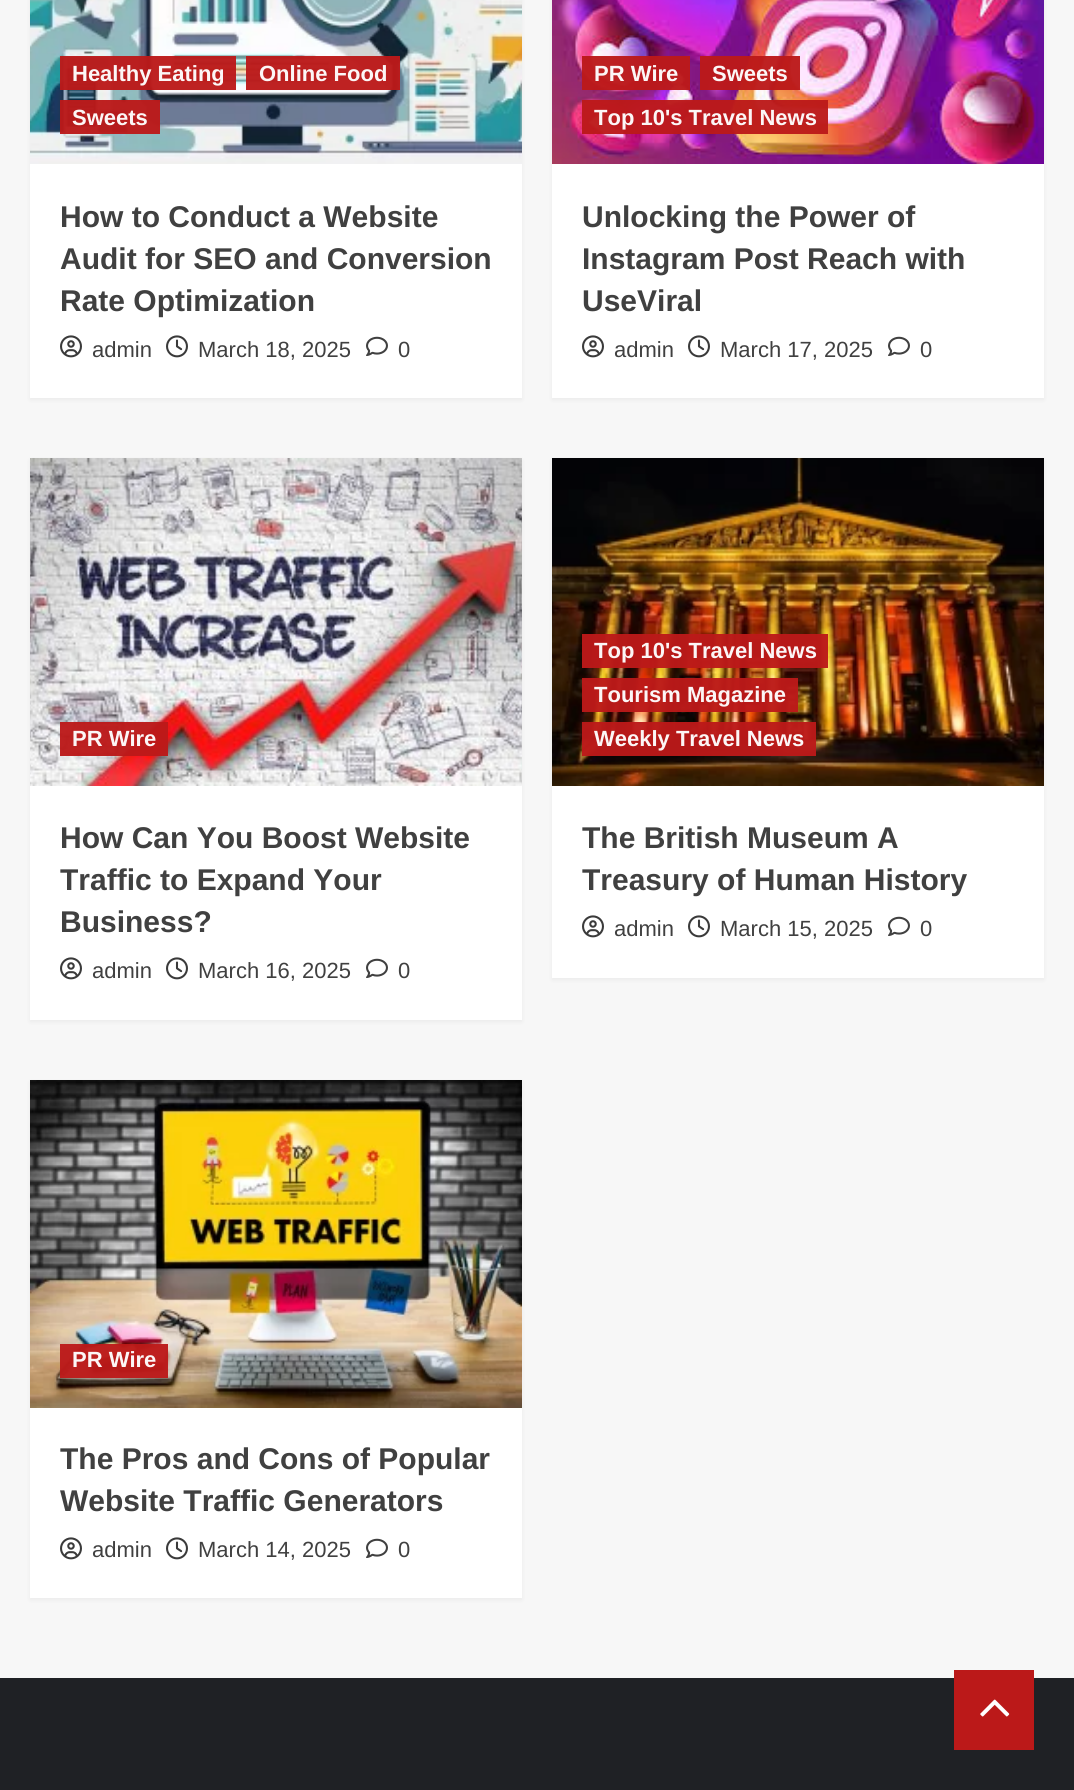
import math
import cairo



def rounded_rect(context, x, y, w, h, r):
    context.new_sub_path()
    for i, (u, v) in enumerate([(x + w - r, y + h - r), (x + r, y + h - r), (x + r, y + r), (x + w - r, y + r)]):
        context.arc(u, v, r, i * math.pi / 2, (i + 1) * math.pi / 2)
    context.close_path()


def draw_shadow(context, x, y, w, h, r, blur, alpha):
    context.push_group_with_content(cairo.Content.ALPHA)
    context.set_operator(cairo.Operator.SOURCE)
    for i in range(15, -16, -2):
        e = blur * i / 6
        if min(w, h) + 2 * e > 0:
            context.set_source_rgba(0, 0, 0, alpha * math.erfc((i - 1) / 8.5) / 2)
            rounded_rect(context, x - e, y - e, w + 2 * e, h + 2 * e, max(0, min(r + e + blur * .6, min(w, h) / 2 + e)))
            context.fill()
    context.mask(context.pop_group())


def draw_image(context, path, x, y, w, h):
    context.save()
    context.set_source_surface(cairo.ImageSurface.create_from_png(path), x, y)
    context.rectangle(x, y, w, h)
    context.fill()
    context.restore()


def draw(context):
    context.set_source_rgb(247 / 255, 247 / 255, 247 / 255)
    context.paint()
    context.set_source_rgb(0, 0, 0)
    draw_shadow(context, 30, -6, 492, 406, 0, 2, 0.05)
    context.set_source_rgb(1, 1, 1)
    context.rectangle(30, 164, 492, 234)
    context.fill()
    draw_image(context, "images/1.png", 30, 0, 492, 164)
    context.set_source_rgba(187 / 255, 25 / 255, 25 / 255, 0.96)
    context.rectangle(60, 56, 176, 34)
    context.fill()
    context.rectangle(246, 56, 154, 34)
    context.fill()
    context.rectangle(60, 100, 100, 34)
    context.fill()
    draw_image(context, "images/2.png", 60, 335, 22, 23)
    draw_image(context, "images/3.png", 166, 335, 22, 23)
    draw_image(context, "images/4.png", 366, 336, 22, 20)
    context.set_source_rgb(0, 0, 0)
    draw_shadow(context, 552, -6, 492, 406, 0, 2, 0.05)
    context.set_source_rgb(1, 1, 1)
    context.rectangle(552, 164, 492, 234)
    context.fill()
    draw_image(context, "images/5.png", 552, 0, 492, 164)
    context.set_source_rgba(187 / 255, 25 / 255, 25 / 255, 0.96)
    context.rectangle(582, 56, 108, 34)
    context.fill()
    context.rectangle(700, 56, 100, 34)
    context.fill()
    context.rectangle(582, 100, 246, 34)
    context.fill()
    draw_image(context, "images/2.png", 582, 335, 22, 23)
    draw_image(context, "images/3.png", 688, 335, 22, 23)
    draw_image(context, "images/4.png", 888, 336, 22, 20)
    context.set_source_rgb(0, 0, 0)
    draw_shadow(context, 30, 460, 492, 562, 0, 2, 0.05)
    context.set_source_rgb(1, 1, 1)
    context.rectangle(30, 786, 492, 234)
    context.fill()
    draw_image(context, "images/6.png", 30, 458, 492, 328)
    context.set_source_rgba(187 / 255, 25 / 255, 25 / 255, 0.96)
    context.rectangle(60, 722, 108, 34)
    context.fill()
    draw_image(context, "images/2.png", 60, 957, 22, 23)
    draw_image(context, "images/3.png", 166, 957, 22, 23)
    draw_image(context, "images/4.png", 366, 958, 22, 20)
    context.set_source_rgb(0, 0, 0)
    draw_shadow(context, 552, 460, 492, 520, 0, 2, 0.05)
    context.set_source_rgb(1, 1, 1)
    context.rectangle(552, 786, 492, 192)
    context.fill()
    draw_image(context, "images/7.png", 552, 458, 492, 328)
    context.set_source_rgba(187 / 255, 25 / 255, 25 / 255, 0.96)
    context.rectangle(582, 634, 246, 34)
    context.fill()
    context.rectangle(582, 678, 216, 34)
    context.fill()
    context.rectangle(582, 722, 234, 34)
    context.fill()
    draw_image(context, "images/2.png", 582, 915, 22, 23)
    draw_image(context, "images/3.png", 688, 915, 22, 23)
    draw_image(context, "images/4.png", 888, 916, 22, 20)
    context.set_source_rgb(0, 0, 0)
    draw_shadow(context, 30, 1082, 492, 518, 0, 2, 0.05)
    context.set_source_rgb(1, 1, 1)
    context.rectangle(30, 1408, 492, 190)
    context.fill()
    draw_image(context, "images/8.png", 30, 1080, 492, 328)
    context.set_source_rgba(187 / 255, 25 / 255, 25 / 255, 0.96)
    context.rectangle(60, 1344, 108, 34)
    context.fill()
    draw_image(context, "images/2.png", 60, 1537, 22, 23)
    draw_image(context, "images/3.png", 166, 1537, 22, 23)
    draw_image(context, "images/4.png", 366, 1538, 22, 20)
    context.set_source_rgb(31 / 255, 33 / 255, 37 / 255)
    context.rectangle(0, 1678, 1074, 112)
    context.fill()
    context.set_source_rgb(187 / 255, 25 / 255, 25 / 255)
    context.rectangle(954, 1670, 80, 80)
    context.fill()
    draw_image(context, "images/9.png", 980, 1699, 30, 18)
    context.select_font_face("Liberation Sans", cairo.FontSlant.NORMAL, cairo.FontWeight.BOLD)
    context.set_font_size(22)
    context.set_source_rgb(252 / 255, 246 / 255, 246 / 255)
    context.move_to(72, 81)
    context.show_text("Healthy Eating")
    context.move_to(259, 81)
    context.show_text("Online Food")
    context.move_to(72, 125)
    context.show_text("Sweets")
    context.set_font_size(30)
    context.set_source_rgb(64 / 255, 64 / 255, 64 / 255)
    context.move_to(60, 227)
    context.show_text("How to Conduct a Website")
    context.move_to(60, 269)
    context.show_text("Audit for SEO and Conversion")
    context.move_to(60, 311)
    context.show_text("Rate Optimization")
    context.select_font_face("Liberation Sans")
    context.set_font_size(22)
    context.move_to(92, 357)
    context.show_text("admin")
    context.move_to(198, 357)
    context.show_text("March 18, 2025")
    context.move_to(398, 357)
    context.show_text("0")
    context.select_font_face("Liberation Sans", cairo.FontSlant.NORMAL, cairo.FontWeight.BOLD)
    context.set_source_rgb(252 / 255, 246 / 255, 246 / 255)
    context.move_to(594, 81)
    context.show_text("PR Wire")
    context.move_to(712, 81)
    context.show_text("Sweets")
    context.move_to(594, 125)
    context.show_text("Top 10's Travel News")
    context.set_font_size(30)
    context.set_source_rgb(64 / 255, 64 / 255, 64 / 255)
    context.move_to(582, 227)
    context.show_text("Unlocking the Power of")
    context.move_to(582, 269)
    context.show_text("Instagram Post Reach with")
    context.move_to(582, 311)
    context.show_text("UseViral")
    context.select_font_face("Liberation Sans")
    context.set_font_size(22)
    context.move_to(614, 357)
    context.show_text("admin")
    context.move_to(720, 357)
    context.show_text("March 17, 2025")
    context.move_to(920, 357)
    context.show_text("0")
    context.select_font_face("Liberation Sans", cairo.FontSlant.NORMAL, cairo.FontWeight.BOLD)
    context.set_source_rgb(252 / 255, 246 / 255, 246 / 255)
    context.move_to(72, 746)
    context.show_text("PR Wire")
    context.set_font_size(30)
    context.set_source_rgb(64 / 255, 64 / 255, 64 / 255)
    context.move_to(60, 848)
    context.show_text("How Can You Boost Website")
    context.move_to(60, 890)
    context.show_text("Traffic to Expand Your")
    context.move_to(60, 932)
    context.show_text("Business?")
    context.select_font_face("Liberation Sans")
    context.set_font_size(22)
    context.move_to(92, 978)
    context.show_text("admin")
    context.move_to(198, 978)
    context.show_text("March 16, 2025")
    context.move_to(398, 978)
    context.show_text("0")
    context.select_font_face("Liberation Sans", cairo.FontSlant.NORMAL, cairo.FontWeight.BOLD)
    context.set_source_rgb(252 / 255, 246 / 255, 246 / 255)
    context.move_to(594, 658)
    context.show_text("Top 10's Travel News")
    context.move_to(594, 702)
    context.show_text("Tourism Magazine")
    context.move_to(594, 746)
    context.show_text("Weekly Travel News")
    context.set_font_size(30)
    context.set_source_rgb(64 / 255, 64 / 255, 64 / 255)
    context.move_to(582, 848)
    context.show_text("The British Museum A")
    context.move_to(582, 890)
    context.show_text("Treasury of Human History")
    context.select_font_face("Liberation Sans")
    context.set_font_size(22)
    context.move_to(614, 936)
    context.show_text("admin")
    context.move_to(720, 936)
    context.show_text("March 15, 2025")
    context.move_to(920, 936)
    context.show_text("0")
    context.select_font_face("Liberation Sans", cairo.FontSlant.NORMAL, cairo.FontWeight.BOLD)
    context.set_source_rgb(252 / 255, 246 / 255, 246 / 255)
    context.move_to(72, 1367)
    context.show_text("PR Wire")
    context.set_font_size(30)
    context.set_source_rgb(64 / 255, 64 / 255, 64 / 255)
    context.move_to(60, 1469)
    context.show_text("The Pros and Cons of Popular")
    context.move_to(60, 1511)
    context.show_text("Website Traffic Generators")
    context.select_font_face("Liberation Sans")
    context.set_font_size(22)
    context.move_to(92, 1557)
    context.show_text("admin")
    context.move_to(198, 1557)
    context.show_text("March 14, 2025")
    context.move_to(398, 1557)
    context.show_text("0")


surface = cairo.ImageSurface(cairo.Format.RGB24, 1074, 1790)
context = cairo.Context(surface)
options = cairo.FontOptions()
options.set_hint_metrics(cairo.HintMetrics.OFF)
options.set_hint_style(cairo.HintStyle.NONE)
context.set_font_options(options)
context.set_miter_limit(4)
draw(context)
surface.write_to_png("out.png")
